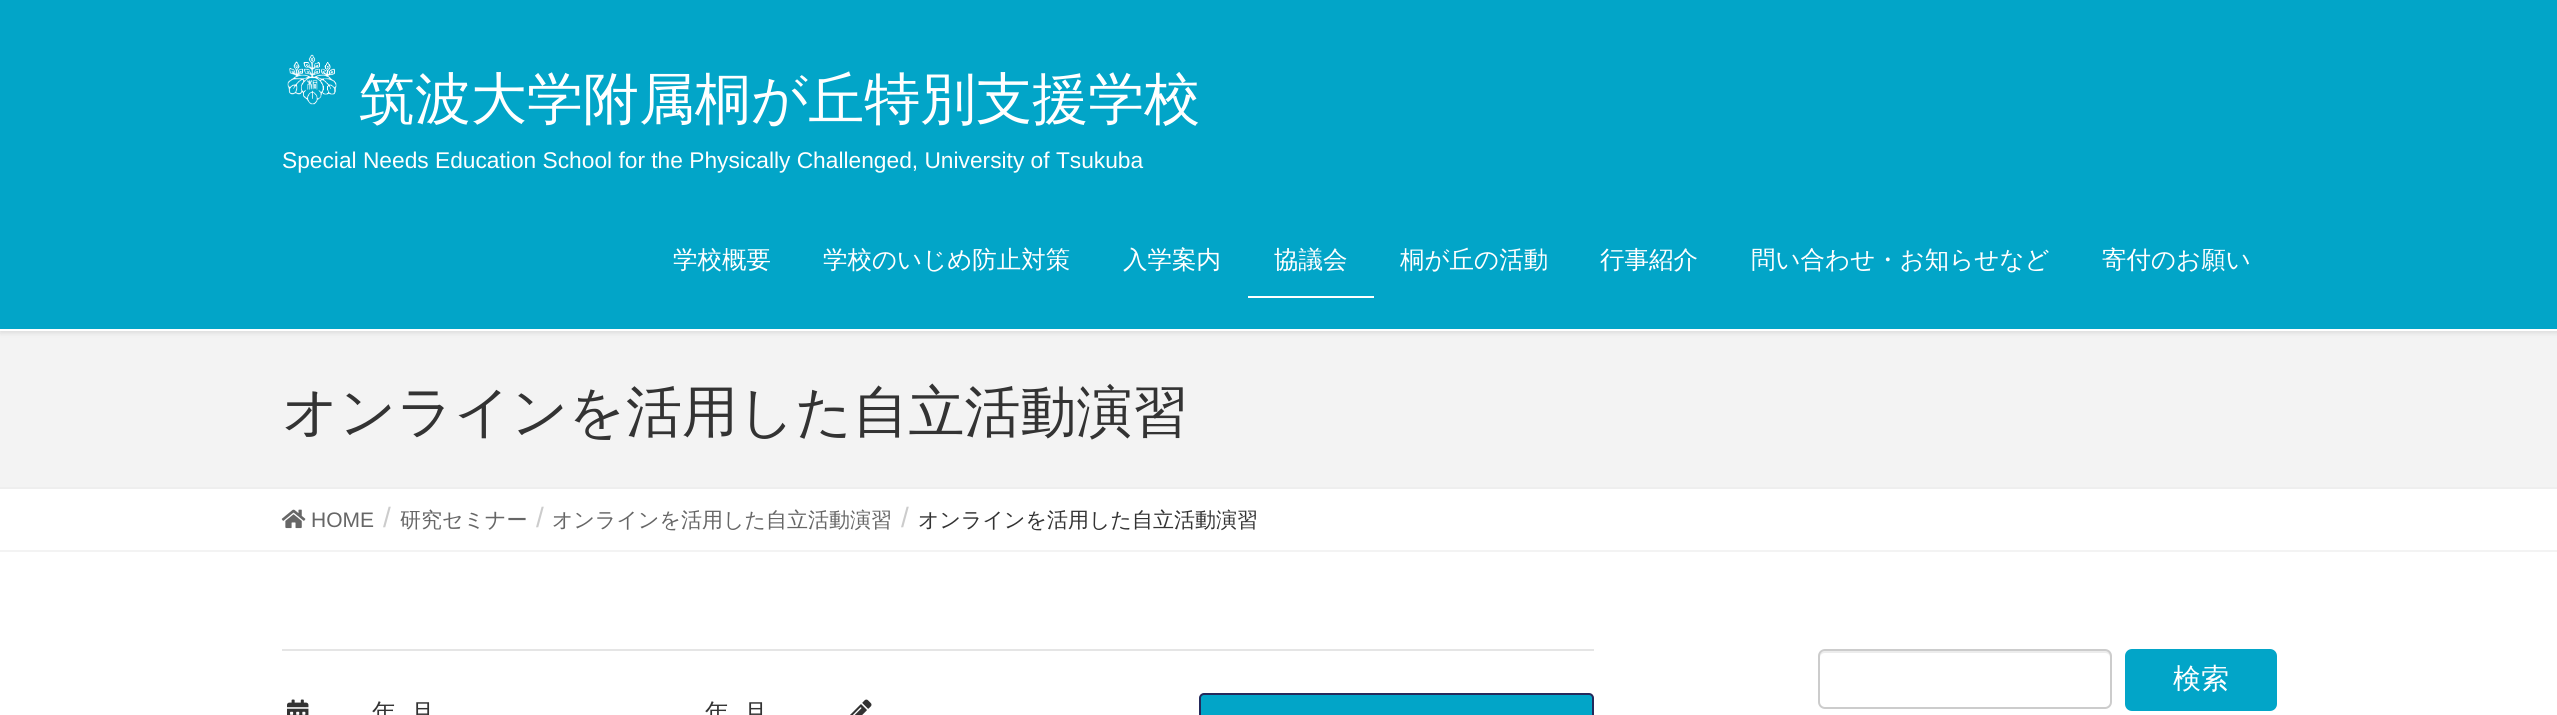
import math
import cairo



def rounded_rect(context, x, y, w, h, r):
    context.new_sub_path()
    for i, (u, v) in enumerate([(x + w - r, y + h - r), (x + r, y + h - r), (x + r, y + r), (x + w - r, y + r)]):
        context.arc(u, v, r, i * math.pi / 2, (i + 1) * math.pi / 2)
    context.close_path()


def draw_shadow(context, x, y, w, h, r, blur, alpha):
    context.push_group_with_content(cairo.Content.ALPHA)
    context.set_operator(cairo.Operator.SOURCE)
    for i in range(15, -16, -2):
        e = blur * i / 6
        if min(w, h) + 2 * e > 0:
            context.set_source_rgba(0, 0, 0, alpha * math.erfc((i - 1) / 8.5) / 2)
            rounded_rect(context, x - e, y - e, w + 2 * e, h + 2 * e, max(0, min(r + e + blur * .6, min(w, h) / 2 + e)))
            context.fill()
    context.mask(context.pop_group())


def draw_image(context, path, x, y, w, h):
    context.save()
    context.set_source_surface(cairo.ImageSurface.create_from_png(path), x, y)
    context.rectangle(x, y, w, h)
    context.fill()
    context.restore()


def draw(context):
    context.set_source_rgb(1, 1, 1)
    context.paint()
    context.set_source_rgb(243 / 255, 243 / 255, 243 / 255)
    context.rectangle(0, 331, 2557, 156)
    context.fill()
    context.set_source_rgb(0, 0, 0)
    draw_shadow(context, 0, 2, 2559, 331, 0, 2.5, 0.1)
    context.set_source_rgb(2 / 255, 165 / 255, 200 / 255)
    context.rectangle(0, 0, 2557, 329)
    context.fill()
    context.set_source_rgb(1, 1, 1)
    context.rectangle(0, 329, 2557, 2)
    context.fill()
    draw_image(context, "images/1.png", 287, 54, 50, 51)
    context.rectangle(1248, 296, 126, 2)
    context.fill()
    context.set_source_rgb(238 / 255, 238 / 255, 238 / 255)
    context.rectangle(0, 487, 2557, 2)
    context.fill()
    context.set_source_rgb(243 / 255, 243 / 255, 243 / 255)
    context.rectangle(0, 550, 2557, 2)
    context.fill()
    draw_image(context, "images/2.png", 281, 509, 25, 20)
    context.set_source_rgb(236 / 255, 236 / 255, 236 / 255)
    context.new_path()
    context.move_to(1825, 653)
    context.line_to(2105, 653)
    context.curve_to(2108, 653, 2110, 655, 2110, 658)
    context.line_to(2110, 705)
    context.curve_to(2111, 704, 2111, 703, 2111, 702)
    context.line_to(2111, 656)
    context.curve_to(2111, 653, 2109, 651, 2106, 651)
    context.line_to(1825, 651)
    context.curve_to(1822, 651, 1820, 653, 1820, 656)
    context.line_to(1820, 658)
    context.curve_to(1820, 655, 1822, 653, 1825, 653)
    context.close_path()
    context.fill()
    rounded_rect(context, 1819, 650, 292, 58, 6)
    context.set_source_rgb(204 / 255, 204 / 255, 204 / 255)
    context.stroke()
    context.set_source_rgb(2 / 255, 165 / 255, 200 / 255)
    rounded_rect(context, 2125, 649, 152, 62, 7)
    context.fill()
    context.set_source_rgb(229 / 255, 229 / 255, 229 / 255)
    context.rectangle(282, 649, 1312, 2)
    context.fill()
    draw_image(context, "images/3.png", 287, 699, 22, 16)
    draw_image(context, "images/4.png", 850, 699, 22, 16)
    context.set_source_rgb(2 / 255, 165 / 255, 200 / 255)
    rounded_rect(context, 1200, 694, 393, 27, 4)
    context.fill_preserve()
    context.set_source_rgb(37 / 255, 41 / 255, 91 / 255)
    context.stroke()
    context.select_font_face("WenQuanYi Zen Hei Medium")
    context.set_font_size(56)
    context.set_source_rgb(1, 1, 1)
    context.move_to(359, 118)
    context.show_text("筑波大学附属桐が丘特別支援学校")
    context.select_font_face("Liberation Sans")
    context.set_font_size(22.75)
    context.move_to(282, 168)
    context.show_text("Special Needs Education School for the Physically Challenged, University of Tsukuba")
    context.select_font_face("WenQuanYi Zen Hei Medium")
    context.set_font_size(24.5)
    context.move_to(673, 268)
    context.show_text("学校概要")
    context.move_to(823, 268)
    context.show_text("学校のいじめ防止対策")
    context.move_to(1123, 268)
    context.show_text("入学案内")
    context.move_to(1274, 268)
    context.show_text("協議会")
    context.move_to(1400, 268)
    context.show_text("桐が丘の活動")
    context.move_to(1600, 268)
    context.show_text("行事紹介")
    context.move_to(1751, 268)
    context.show_text("問い合わせ・お知らせなど")
    context.move_to(2102, 268)
    context.show_text("寄付のお願い")
    context.set_font_size(56)
    context.set_source_rgb(51 / 255, 51 / 255, 51 / 255)
    context.move_to(282, 431)
    context.show_text("オンラインを活用した自立活動演習")
    context.select_font_face("Liberation Sans")
    context.set_font_size(21)
    context.set_source_rgb(102 / 255, 102 / 255, 102 / 255)
    context.move_to(311, 527)
    context.show_text("HOME")
    context.set_font_size(28)
    context.set_source_rgb(204 / 255, 204 / 255, 204 / 255)
    context.move_to(383, 527)
    context.show_text("/")
    context.select_font_face("WenQuanYi Zen Hei Medium")
    context.set_font_size(21)
    context.set_source_rgb(102 / 255, 102 / 255, 102 / 255)
    context.move_to(400, 527)
    context.show_text("研究セミナー")
    context.select_font_face("Liberation Sans")
    context.set_font_size(28)
    context.set_source_rgb(204 / 255, 204 / 255, 204 / 255)
    context.move_to(536, 527)
    context.show_text("/")
    context.select_font_face("WenQuanYi Zen Hei Medium")
    context.set_font_size(21)
    context.set_source_rgb(102 / 255, 102 / 255, 102 / 255)
    context.move_to(552, 527)
    context.show_text("オンラインを活用した自立活動演習")
    context.select_font_face("Liberation Sans")
    context.set_font_size(28)
    context.set_source_rgb(204 / 255, 204 / 255, 204 / 255)
    context.move_to(901, 527)
    context.show_text("/")
    context.select_font_face("WenQuanYi Zen Hei Medium")
    context.set_font_size(21)
    context.set_source_rgb(51 / 255, 51 / 255, 51 / 255)
    context.move_to(918, 527)
    context.show_text("オンラインを活用した自立活動演習")
    context.set_font_size(28)
    context.set_source_rgb(1, 1, 1)
    context.move_to(2173, 688)
    context.show_text("検索")
    context.set_font_size(24.5)
    context.set_source_rgb(51 / 255, 51 / 255, 51 / 255)
    context.move_to(372, 721)
    context.show_text("年")
    context.move_to(410, 721)
    context.show_text("月")
    context.move_to(705, 721)
    context.show_text("年")
    context.move_to(743, 721)
    context.show_text("月")


surface = cairo.ImageSurface(cairo.Format.RGB24, 2557, 715)
context = cairo.Context(surface)
options = cairo.FontOptions()
options.set_hint_metrics(cairo.HintMetrics.OFF)
options.set_hint_style(cairo.HintStyle.NONE)
context.set_font_options(options)
context.set_miter_limit(4)
draw(context)
surface.write_to_png("out.png")
